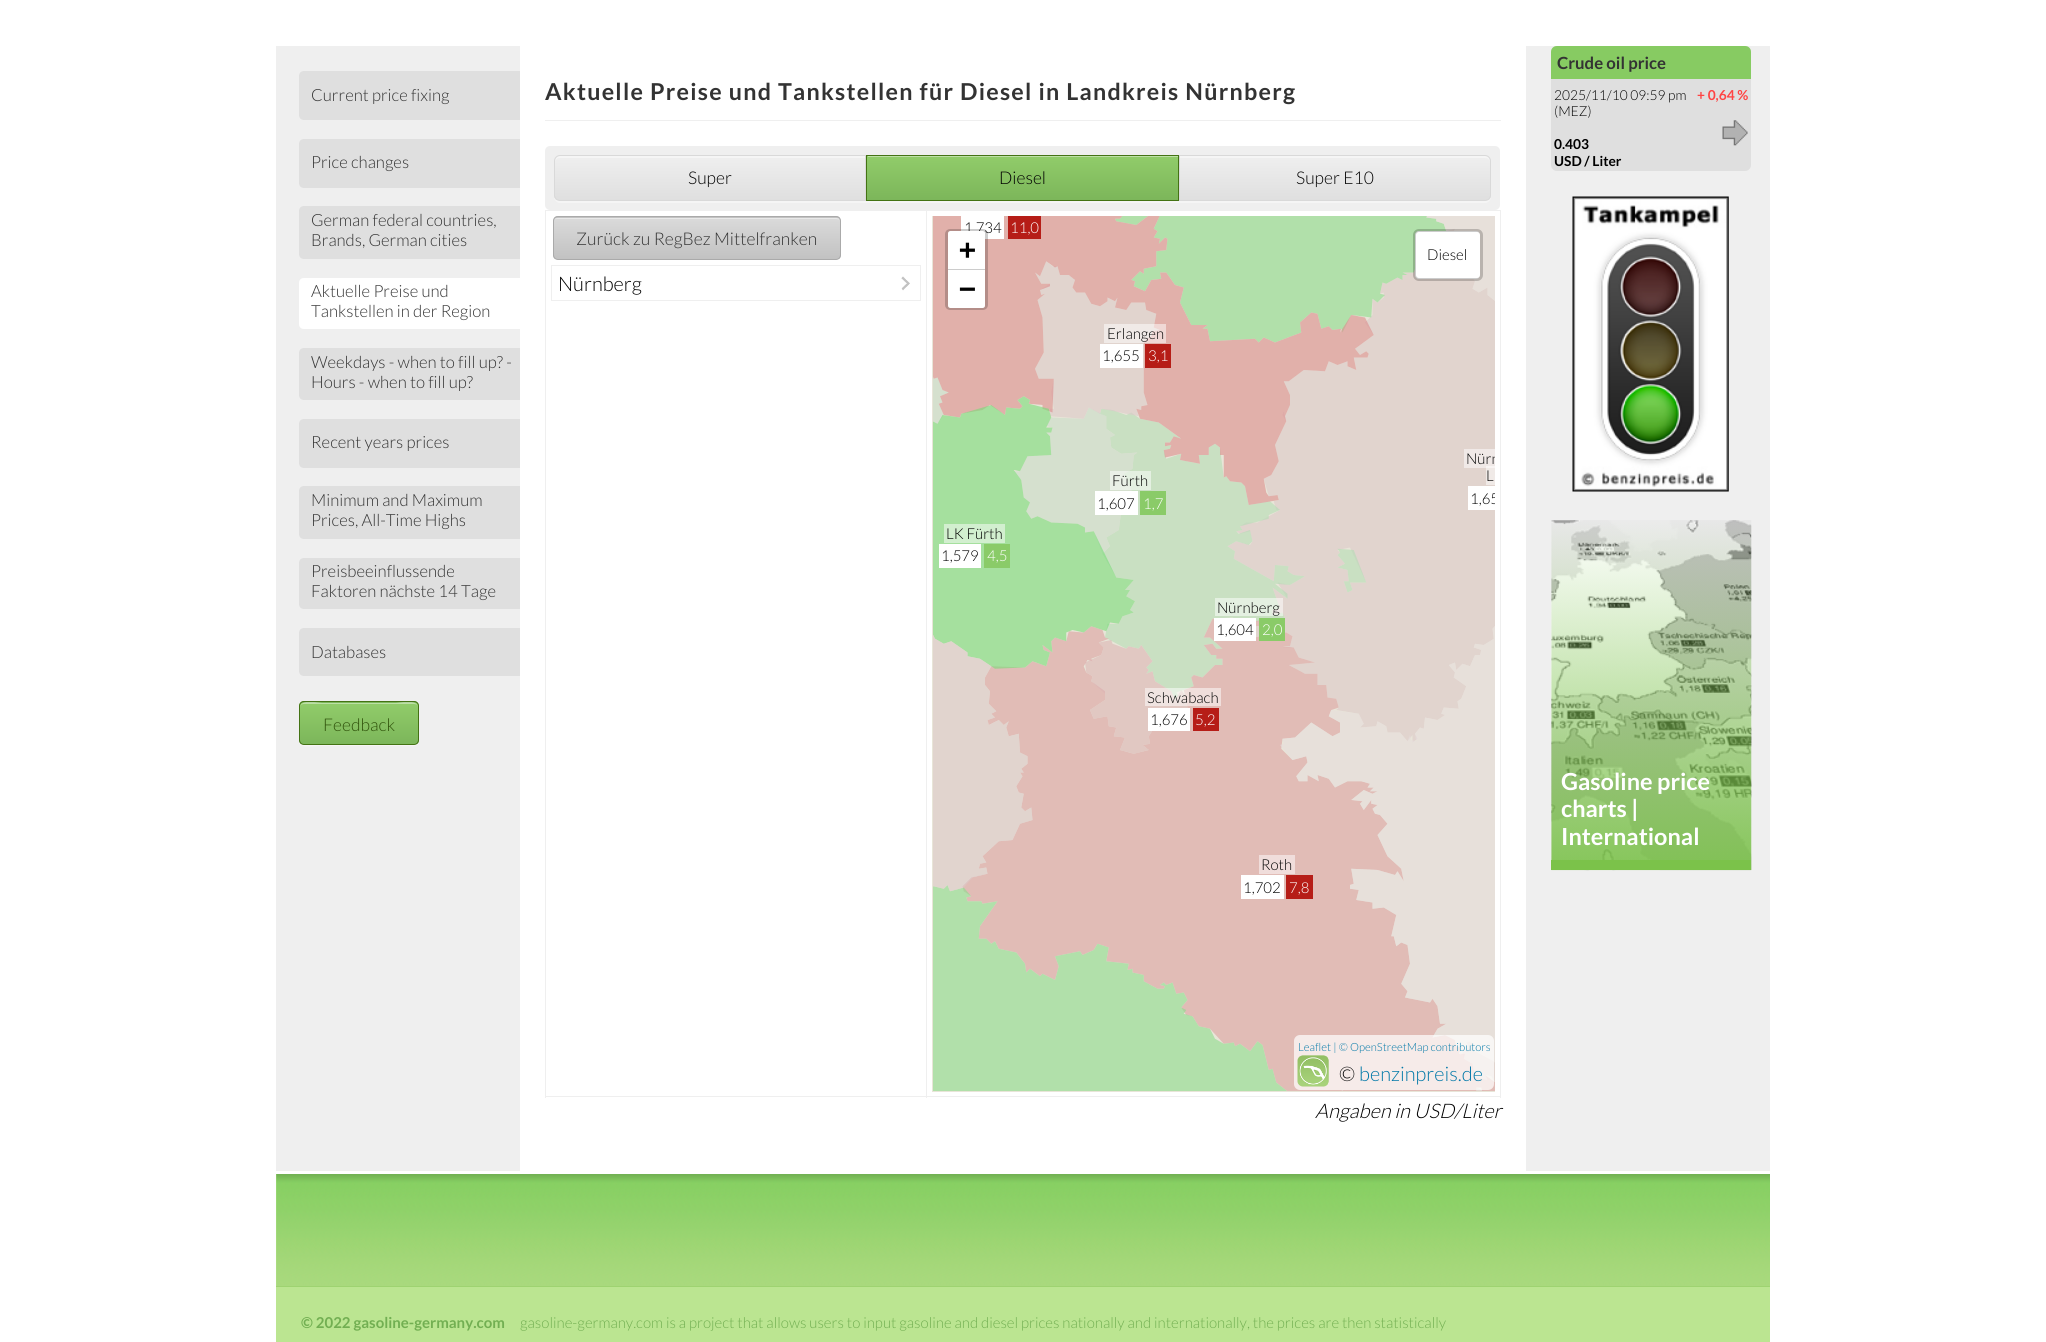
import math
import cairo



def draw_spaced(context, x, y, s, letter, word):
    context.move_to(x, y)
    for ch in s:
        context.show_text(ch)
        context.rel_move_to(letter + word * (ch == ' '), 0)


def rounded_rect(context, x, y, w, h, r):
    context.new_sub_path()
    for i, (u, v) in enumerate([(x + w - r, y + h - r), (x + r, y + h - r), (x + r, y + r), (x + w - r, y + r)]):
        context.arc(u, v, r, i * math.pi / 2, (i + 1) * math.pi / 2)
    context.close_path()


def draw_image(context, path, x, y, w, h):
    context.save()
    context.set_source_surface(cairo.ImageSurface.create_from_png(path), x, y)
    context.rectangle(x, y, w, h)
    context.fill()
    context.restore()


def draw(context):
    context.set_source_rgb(1, 1, 1)
    context.paint()
    context.set_source_rgb(239 / 255, 239 / 255, 239 / 255)
    context.rectangle(276, 46, 244, 1125)
    context.fill()
    context.set_source_rgb(223 / 255, 223 / 255, 223 / 255)
    context.new_path()
    context.move_to(304, 71)
    context.line_to(520, 71)
    context.line_to(520, 120)
    context.line_to(304, 120)
    context.curve_to(301, 120, 299, 118, 299, 115)
    context.line_to(299, 76)
    context.curve_to(299, 73, 301, 71, 304, 71)
    context.close_path()
    context.fill()
    context.new_path()
    context.move_to(304, 139)
    context.line_to(520, 139)
    context.line_to(520, 188)
    context.line_to(304, 188)
    context.curve_to(301, 188, 299, 186, 299, 183)
    context.line_to(299, 144)
    context.curve_to(299, 141, 301, 139, 304, 139)
    context.close_path()
    context.fill()
    context.new_path()
    context.move_to(304, 206)
    context.line_to(520, 206)
    context.line_to(520, 259)
    context.line_to(304, 259)
    context.curve_to(301, 259, 299, 257, 299, 254)
    context.line_to(299, 211)
    context.curve_to(299, 208, 301, 206, 304, 206)
    context.close_path()
    context.fill()
    context.set_source_rgb(1, 1, 1)
    context.new_path()
    context.move_to(304, 278)
    context.line_to(520, 278)
    context.line_to(520, 329)
    context.line_to(304, 329)
    context.curve_to(301, 329, 299, 327, 299, 324)
    context.line_to(299, 283)
    context.curve_to(299, 280, 301, 278, 304, 278)
    context.close_path()
    context.fill()
    context.set_source_rgb(223 / 255, 223 / 255, 223 / 255)
    context.new_path()
    context.move_to(304, 348)
    context.line_to(520, 348)
    context.line_to(520, 400)
    context.line_to(304, 400)
    context.curve_to(301, 400, 299, 398, 299, 395)
    context.line_to(299, 353)
    context.curve_to(299, 350, 301, 348, 304, 348)
    context.close_path()
    context.fill()
    context.new_path()
    context.move_to(304, 419)
    context.line_to(520, 419)
    context.line_to(520, 468)
    context.line_to(304, 468)
    context.curve_to(301, 468, 299, 466, 299, 463)
    context.line_to(299, 424)
    context.curve_to(299, 421, 301, 419, 304, 419)
    context.close_path()
    context.fill()
    context.new_path()
    context.move_to(304, 486)
    context.line_to(520, 486)
    context.line_to(520, 539)
    context.line_to(304, 539)
    context.curve_to(301, 539, 299, 537, 299, 534)
    context.line_to(299, 491)
    context.curve_to(299, 488, 301, 486, 304, 486)
    context.close_path()
    context.fill()
    context.new_path()
    context.move_to(304, 558)
    context.line_to(520, 558)
    context.line_to(520, 609)
    context.line_to(304, 609)
    context.curve_to(301, 609, 299, 607, 299, 604)
    context.line_to(299, 563)
    context.curve_to(299, 560, 301, 558, 304, 558)
    context.close_path()
    context.fill()
    context.new_path()
    context.move_to(304, 628)
    context.line_to(520, 628)
    context.line_to(520, 676)
    context.line_to(304, 676)
    context.curve_to(301, 676, 299, 674, 299, 671)
    context.line_to(299, 633)
    context.curve_to(299, 630, 301, 628, 304, 628)
    context.close_path()
    context.fill()
    context.set_source_rgb(245 / 255, 245 / 255, 245 / 255)
    context.new_path()
    context.move_to(299, 742)
    context.curve_to(300, 749, 314, 746, 322, 746)
    context.line_to(396, 746)
    context.curve_to(419, 746, 419, 750, 419, 730)
    context.line_to(419, 706)
    context.line_to(419, 740)
    context.curve_to(419, 743, 417, 745, 414, 745)
    context.line_to(304, 745)
    context.curve_to(302, 745, 300, 744, 299, 742)
    context.close_path()
    context.fill()
    context.save()
    rounded_rect(context, 299, 701, 120, 44, 5)
    context.clip()
    gradient = cairo.LinearGradient(359, 661, 359, 703)
    gradient.add_color_stop_rgba(0, 145 / 255, 204 / 255, 106 / 255, 1)
    gradient.add_color_stop_rgba(1, 124 / 255, 182 / 255, 90 / 255, 1)
    context.set_source(gradient)
    context.rectangle(299, 701, 120, 2)
    context.fill()
    gradient = cairo.LinearGradient(359, 703, 359, 744)
    gradient.add_color_stop_rgba(0, 145 / 255, 204 / 255, 106 / 255, 1)
    gradient.add_color_stop_rgba(1, 124 / 255, 182 / 255, 90 / 255, 1)
    context.set_source(gradient)
    context.rectangle(299, 703, 120, 41)
    context.fill()
    context.restore()
    context.set_source_rgba(1, 1, 1, 0.4)
    context.new_path()
    context.move_to(304, 704)
    context.line_to(414, 704)
    context.curve_to(416, 704, 418, 705, 418, 708)
    context.curve_to(418, 698, 399, 703, 396, 703)
    context.line_to(322, 703)
    context.curve_to(319, 703, 300, 698, 300, 708)
    context.curve_to(300, 705, 302, 704, 304, 704)
    context.close_path()
    context.fill()
    rounded_rect(context, 299.5, 701.5, 119, 43, 4.5)
    context.set_source_rgb(68 / 255, 115 / 255, 20 / 255)
    context.set_line_width(1)
    context.stroke()
    context.set_source_rgb(239 / 255, 239 / 255, 239 / 255)
    context.rectangle(545, 120, 956, 1)
    context.fill()
    rounded_rect(context, 545, 146, 955, 64, 5)
    context.fill()
    context.set_source_rgb(245 / 255, 245 / 255, 245 / 255)
    context.new_path()
    context.move_to(554, 197)
    context.curve_to(554, 200, 557, 203, 560, 203)
    context.line_to(866, 203)
    context.line_to(866, 201)
    context.line_to(560, 201)
    context.curve_to(557, 201, 555, 199, 554, 197)
    context.close_path()
    context.fill()
    context.save()
    context.new_path()
    context.move_to(560, 155)
    context.line_to(866, 155)
    context.line_to(866, 201)
    context.line_to(560, 201)
    context.curve_to(556.5, 201, 554, 198.5, 554, 195)
    context.line_to(554, 161)
    context.curve_to(554, 157.5, 556.5, 155, 560, 155)
    context.close_path()
    context.clip()
    gradient = cairo.LinearGradient(710, 156, 710, 200)
    gradient.add_color_stop_rgba(0, 239 / 255, 239 / 255, 239 / 255, 1)
    gradient.add_color_stop_rgba(1, 223 / 255, 223 / 255, 223 / 255, 1)
    context.set_source(gradient)
    context.rectangle(554, 156, 311, 44)
    context.fill()
    context.restore()
    context.new_path()
    context.move_to(560, 158)
    context.line_to(865, 158)
    context.line_to(865, 156)
    context.line_to(560, 156)
    context.curve_to(557, 156, 555, 159, 555, 162)
    context.curve_to(555, 160, 557, 158, 560, 158)
    context.close_path()
    context.fill()
    context.new_path()
    context.move_to(560, 155.5)
    context.line_to(865.5, 155.5)
    context.line_to(865.5, 200.5)
    context.line_to(560, 200.5)
    context.curve_to(557, 200.5, 554.5, 198, 554.5, 195)
    context.line_to(554.5, 161)
    context.curve_to(554.5, 158, 557, 155.5, 560, 155.5)
    context.close_path()
    context.set_source_rgb(217 / 255, 217 / 255, 217 / 255)
    context.stroke()
    context.set_source_rgb(245 / 255, 245 / 255, 245 / 255)
    context.new_path()
    context.move_to(866, 156)
    context.line_to(866, 203)
    context.line_to(1179, 203)
    context.line_to(1179, 156)
    context.line_to(1179, 201)
    context.line_to(866, 201)
    context.close_path()
    context.fill()
    gradient = cairo.LinearGradient(1023, 156, 1023, 200)
    gradient.add_color_stop_rgba(0, 145 / 255, 204 / 255, 106 / 255, 1)
    gradient.add_color_stop_rgba(1, 124 / 255, 182 / 255, 90 / 255, 1)
    context.set_source(gradient)
    context.rectangle(867, 156, 311, 44)
    context.fill()
    context.set_source_rgb(189 / 255, 224 / 255, 166 / 255)
    context.rectangle(868, 156, 310, 1)
    context.fill()
    context.rectangle(866.5, 155.5, 312, 45)
    context.set_source_rgb(68 / 255, 115 / 255, 20 / 255)
    context.stroke()
    context.set_source_rgb(245 / 255, 245 / 255, 245 / 255)
    context.new_path()
    context.move_to(1179, 201)
    context.line_to(1179, 203)
    context.line_to(1485, 203)
    context.curve_to(1488, 203, 1491, 200, 1491, 197)
    context.curve_to(1490, 199, 1488, 201, 1485, 201)
    context.close_path()
    context.fill()
    context.save()
    context.new_path()
    context.move_to(1179, 155)
    context.line_to(1485, 155)
    context.curve_to(1488.5, 155, 1491, 157.5, 1491, 161)
    context.line_to(1491, 195)
    context.curve_to(1491, 198.5, 1488.5, 201, 1485, 201)
    context.line_to(1179, 201)
    context.close_path()
    context.clip()
    gradient = cairo.LinearGradient(1335, 156, 1335, 200)
    gradient.add_color_stop_rgba(0, 239 / 255, 239 / 255, 239 / 255, 1)
    gradient.add_color_stop_rgba(1, 223 / 255, 223 / 255, 223 / 255, 1)
    context.set_source(gradient)
    context.rectangle(1180, 156, 311, 44)
    context.fill()
    context.restore()
    context.new_path()
    context.move_to(1180, 158)
    context.line_to(1485, 158)
    context.curve_to(1488, 158, 1490, 160, 1490, 162)
    context.curve_to(1490, 159, 1488, 156, 1485, 156)
    context.line_to(1180, 156)
    context.close_path()
    context.fill()
    context.new_path()
    context.move_to(1179.5, 155.5)
    context.line_to(1485, 155.5)
    context.curve_to(1488, 155.5, 1490.5, 158, 1490.5, 161)
    context.line_to(1490.5, 195)
    context.curve_to(1490.5, 198, 1488, 200.5, 1485, 200.5)
    context.line_to(1179.5, 200.5)
    context.close_path()
    context.set_source_rgb(217 / 255, 217 / 255, 217 / 255)
    context.stroke()
    context.set_source_rgb(239 / 255, 239 / 255, 239 / 255)
    context.rectangle(926, 210, 575, 1)
    context.fill()
    context.rectangle(1500, 210, 1, 888)
    context.fill()
    context.rectangle(926, 1096, 575, 1)
    context.fill()
    context.rectangle(926, 210, 1, 888)
    context.fill()
    context.rectangle(545, 210, 383, 1)
    context.fill()
    context.rectangle(545, 1096, 383, 1)
    context.fill()
    context.rectangle(545, 210, 1, 888)
    context.fill()
    context.save()
    rounded_rect(context, 553, 216, 288, 44, 5)
    context.clip()
    gradient = cairo.LinearGradient(697, 176, 697, 218)
    gradient.add_color_stop_rgba(0, 218 / 255, 218 / 255, 218 / 255, 1)
    gradient.add_color_stop_rgba(1, 194 / 255, 194 / 255, 194 / 255, 1)
    context.set_source(gradient)
    context.rectangle(553, 216, 288, 2)
    context.fill()
    gradient = cairo.LinearGradient(697, 218, 697, 259)
    gradient.add_color_stop_rgba(0, 218 / 255, 218 / 255, 218 / 255, 1)
    gradient.add_color_stop_rgba(1, 194 / 255, 194 / 255, 194 / 255, 1)
    context.set_source(gradient)
    context.rectangle(553, 218, 288, 41)
    context.fill()
    context.restore()
    context.set_source_rgb(233 / 255, 233 / 255, 233 / 255)
    context.new_path()
    context.move_to(558, 219)
    context.line_to(836, 219)
    context.curve_to(838, 219, 840, 220, 840, 222)
    context.curve_to(840, 220, 838, 218, 836, 218)
    context.line_to(558, 218)
    context.curve_to(556, 218, 555, 219, 554, 220)
    context.curve_to(555, 219, 556, 219, 558, 219)
    context.close_path()
    context.fill()
    rounded_rect(context, 553.5, 216.5, 287, 43, 4.5)
    context.set_source_rgb(170 / 255, 170 / 255, 170 / 255)
    context.stroke()
    draw_image(context, "images/1.png", 901, 276, 9, 15)
    context.set_source_rgb(239 / 255, 239 / 255, 239 / 255)
    context.rectangle(551, 265, 370, 1)
    context.fill()
    context.rectangle(920, 265, 1, 36)
    context.fill()
    context.rectangle(551, 300, 370, 1)
    context.fill()
    context.rectangle(551, 265, 1, 36)
    context.fill()
    context.set_source_rgb(232 / 255, 229 / 255, 216 / 255)
    context.rectangle(932, 216, 563, 876)
    context.fill()
    draw_image(context, "images/2.png", 933, 216, 562, 875)
    context.set_source_rgb(1, 1, 1)
    context.rectangle(961, 216, 43, 23)
    context.fill()
    context.set_source_rgb(182 / 255, 29 / 255, 23 / 255)
    context.rectangle(1008, 216, 33, 23)
    context.fill()
    context.set_source_rgba(1, 1, 1, 0.5)
    context.rectangle(1104, 324, 62, 19)
    context.fill()
    context.set_source_rgb(1, 1, 1)
    context.rectangle(1100, 344, 43, 24)
    context.fill()
    context.set_source_rgb(182 / 255, 29 / 255, 23 / 255)
    context.rectangle(1145, 344, 26, 24)
    context.fill()
    context.set_source_rgba(1, 1, 1, 0.5)
    context.rectangle(1110, 471, 41, 19)
    context.fill()
    context.set_source_rgb(1, 1, 1)
    context.rectangle(1095, 491, 43, 24)
    context.fill()
    context.set_source_rgb(138 / 255, 203 / 255, 104 / 255)
    context.rectangle(1140, 491, 26, 24)
    context.fill()
    context.set_source_rgb(240 / 255, 233 / 255, 231 / 255)
    context.rectangle(1464, 449, 31, 19)
    context.fill()
    context.set_source_rgba(1, 1, 1, 0.5)
    context.rectangle(1486, 466, 9, 19)
    context.fill()
    context.set_source_rgb(1, 1, 1)
    context.rectangle(1468, 486, 27, 24)
    context.fill()
    context.set_source_rgb(210 / 255, 239 / 255, 207 / 255)
    context.rectangle(944, 524, 61, 19)
    context.fill()
    context.set_source_rgb(1, 1, 1)
    context.rectangle(939, 544, 42, 24)
    context.fill()
    context.set_source_rgb(138 / 255, 203 / 255, 104 / 255)
    context.rectangle(984, 544, 26, 24)
    context.fill()
    context.set_source_rgba(1, 1, 1, 0.5)
    context.rectangle(1215, 598, 68, 18)
    context.fill()
    context.set_source_rgb(1, 1, 1)
    context.rectangle(1214, 618, 42, 23)
    context.fill()
    context.set_source_rgb(138 / 255, 203 / 255, 104 / 255)
    context.rectangle(1259, 618, 26, 23)
    context.fill()
    context.set_source_rgba(1, 1, 1, 0.5)
    context.rectangle(1145, 688, 76, 18)
    context.fill()
    context.set_source_rgb(1, 1, 1)
    context.rectangle(1148, 708, 42, 23)
    context.fill()
    context.set_source_rgb(182 / 255, 29 / 255, 23 / 255)
    context.rectangle(1193, 708, 26, 23)
    context.fill()
    context.set_source_rgb(240 / 255, 221 / 255, 219 / 255)
    context.rectangle(1259, 855, 36, 19)
    context.fill()
    context.set_source_rgb(1, 1, 1)
    context.rectangle(1241, 875, 43, 24)
    context.fill()
    context.set_source_rgb(182 / 255, 29 / 255, 23 / 255)
    context.rectangle(1286, 875, 27, 24)
    context.fill()
    context.set_source_rgb(1, 1, 1)
    rounded_rect(context, 1415, 231, 65, 48, 4)
    context.fill()
    rounded_rect(context, 1414.5, 230.5, 67, 49, 4.5)
    context.set_source_rgba(0, 0, 0, 0.2)
    context.set_line_width(3)
    context.stroke()
    context.set_source_rgba(1, 1, 1, 0.7)
    rounded_rect(context, 1294, 1035, 200, 55, 6)
    context.fill()
    draw_image(context, "images/3.png", 1297, 1055, 32, 32)
    context.set_source_rgb(239 / 255, 239 / 255, 239 / 255)
    context.rectangle(1526, 46, 244, 1125)
    context.fill()
    context.set_source_rgb(223 / 255, 223 / 255, 223 / 255)
    rounded_rect(context, 1551, 46, 200, 125, 6)
    context.fill()
    context.set_source_rgb(135 / 255, 203 / 255, 98 / 255)
    context.new_path()
    context.move_to(1557, 46)
    context.line_to(1745, 46)
    context.curve_to(1748.5, 46, 1751, 48.5, 1751, 52)
    context.line_to(1751, 79)
    context.line_to(1551, 79)
    context.line_to(1551, 52)
    context.curve_to(1551, 48.5, 1553.5, 46, 1557, 46)
    context.close_path()
    context.fill()
    draw_image(context, "images/4.png", 1722, 120, 26, 26)
    draw_image(context, "images/5.png", 1572, 196, 157, 296)
    draw_image(context, "images/6.png", 1551, 520, 201, 351)
    context.set_source_rgb(123 / 255, 194 / 255, 74 / 255)
    context.rectangle(1551, 860, 200, 10)
    context.fill()
    context.set_source_rgb(187 / 255, 229 / 255, 145 / 255)
    context.rectangle(276, 1174, 1494, 168)
    context.fill()
    draw_image(context, "images/7.png", 276, 1174, 1494, 112)
    context.set_source_rgb(158 / 255, 211 / 255, 113 / 255)
    context.rectangle(276, 1286, 1494, 1)
    context.fill()
    context.select_font_face("Lato Light")
    context.set_font_size(16.75)
    context.set_source_rgb(51 / 255, 51 / 255, 51 / 255)
    context.move_to(311, 101)
    context.show_text("Current price fixing")
    context.move_to(311, 168)
    context.show_text("Price changes")
    context.move_to(311, 226)
    context.show_text("German federal countries,")
    context.move_to(311, 246)
    context.show_text("Brands, German cities")
    context.move_to(311, 297)
    context.show_text("Aktuelle Preise und")
    context.move_to(311, 317)
    context.show_text("Tankstellen in der Region")
    context.move_to(311, 368)
    context.show_text("Weekdays - when to fill up? -")
    context.move_to(311, 388)
    context.show_text("Hours - when to fill up?")
    context.move_to(311, 448)
    context.show_text("Recent years prices")
    context.move_to(311, 506)
    context.show_text("Minimum and Maximum")
    context.move_to(311, 526)
    context.show_text("Prices, All-Time Highs")
    context.move_to(311, 577)
    context.show_text("Preisbeeinflussende")
    context.move_to(311, 597)
    context.show_text("Faktoren nächste 14 Tage")
    context.move_to(311, 658)
    context.show_text("Databases")
    context.set_font_size(17.5)
    context.set_source_rgb(49 / 255, 84 / 255, 12 / 255)
    context.move_to(323, 731)
    context.show_text("Feedback")
    context.select_font_face("Lato", cairo.FontSlant.NORMAL, cairo.FontWeight.BOLD)
    context.set_font_size(23.3)
    context.set_source_rgb(51 / 255, 51 / 255, 51 / 255)
    draw_spaced(context, 545, 100, "Aktuelle Preise und Tankstellen für Diesel in Landkreis Nürnberg", 1.25, 0)
    context.select_font_face("Lato Light")
    context.set_font_size(17.5)
    context.set_source_rgb(0, 0, 0)
    context.move_to(688, 184)
    context.show_text("Super")
    context.move_to(999, 184)
    context.show_text("Diesel")
    context.move_to(1296, 184)
    context.show_text("Super E10")
    context.set_source_rgb(51 / 255, 51 / 255, 51 / 255)
    context.move_to(576, 245)
    context.show_text("Zurück zu RegBez Mittelfranken")
    context.set_font_size(20)
    context.set_source_rgb(0, 0, 0)
    context.move_to(558, 291)
    context.show_text("Nürnberg")
    context.set_font_size(15)
    context.move_to(964, 233)
    context.show_text("1,734")
    context.set_source_rgb(1, 1, 1)
    context.move_to(1010, 233)
    context.show_text("11,0")
    context.set_source_rgb(0, 0, 0)
    context.move_to(1107, 339)
    context.show_text("Erlangen")
    context.move_to(1102, 361)
    context.show_text("1,655")
    context.set_source_rgb(1, 1, 1)
    context.move_to(1148, 361)
    context.show_text("3,1")
    context.set_source_rgb(0, 0, 0)
    context.move_to(1112, 486)
    context.show_text("Fürth")
    context.move_to(1097, 509)
    context.show_text("1,607")
    context.set_source_rgb(1, 1, 1)
    context.move_to(1143, 509)
    context.show_text("1,7")
    context.save()
    context.rectangle(933, 216, 562, 875)
    context.clip()
    context.set_source_rgb(0, 0, 0)
    context.move_to(1466, 464)
    context.show_text("Nürn")
    context.restore()
    context.set_source_rgb(0, 0, 0)
    context.move_to(1486, 481)
    context.show_text("L")
    context.save()
    context.rectangle(933, 216, 562, 875)
    context.clip()
    context.move_to(1470, 504)
    context.show_text("1,65")
    context.restore()
    context.move_to(946, 539)
    context.show_text("LK Fürth")
    context.move_to(941, 561)
    context.show_text("1,579")
    context.set_source_rgb(1, 1, 1)
    context.move_to(987, 561)
    context.show_text("4,5")
    context.set_source_rgb(0, 0, 0)
    context.move_to(1217, 613)
    context.show_text("Nürnberg")
    context.move_to(1216, 635)
    context.show_text("1,604")
    context.set_source_rgb(1, 1, 1)
    context.move_to(1262, 635)
    context.show_text("2,0")
    context.set_source_rgb(0, 0, 0)
    context.move_to(1147, 703)
    context.show_text("Schwabach")
    context.move_to(1150, 725)
    context.show_text("1,676")
    context.set_source_rgb(1, 1, 1)
    context.move_to(1195, 725)
    context.show_text("5,2")
    context.set_source_rgb(0, 0, 0)
    context.move_to(1261, 870)
    context.show_text("Roth")
    context.move_to(1243, 893)
    context.show_text("1,702")
    context.set_source_rgb(1, 1, 1)
    context.move_to(1289, 893)
    context.show_text("7,8")
    rounded_rect(context, 946.5, 230.5, 40, 78, 3.5)
    context.set_source_rgba(0, 0, 0, 0.2)
    context.stroke()
    context.set_source_rgb(1, 1, 1)
    context.new_path()
    context.move_to(950.5, 231)
    context.line_to(982.5, 231)
    context.curve_to(984, 231, 985, 232, 985, 233.5)
    context.line_to(985, 270)
    context.line_to(948, 270)
    context.line_to(948, 233.5)
    context.curve_to(948, 232, 949, 231, 950.5, 231)
    context.close_path()
    context.fill()
    context.set_source_rgb(204 / 255, 204 / 255, 204 / 255)
    context.rectangle(948, 269, 37, 1)
    context.fill()
    context.select_font_face("DejaVu Sans Mono", cairo.FontSlant.NORMAL, cairo.FontWeight.BOLD)
    context.set_font_size(28)
    context.set_source_rgb(0, 0, 0)
    context.move_to(959, 259)
    context.show_text("+")
    context.set_source_rgb(1, 1, 1)
    context.new_path()
    context.move_to(948, 270)
    context.line_to(985, 270)
    context.line_to(985, 305.5)
    context.curve_to(985, 307, 984, 308, 982.5, 308)
    context.line_to(950.5, 308)
    context.curve_to(949, 308, 948, 307, 948, 305.5)
    context.close_path()
    context.fill()
    context.set_source_rgb(0, 0, 0)
    context.move_to(959, 298)
    context.show_text("−")
    context.select_font_face("Lato Light")
    context.set_font_size(15)
    context.move_to(1427, 260)
    context.show_text("Diesel")
    context.set_font_size(11.25)
    context.set_source_rgb(0, 120 / 255, 168 / 255)
    context.move_to(1298, 1051)
    context.show_text("Leaflet | © OpenStreetMap contributors")
    context.set_font_size(20)
    context.set_source_rgb(0, 0, 0)
    context.move_to(1339, 1081)
    context.show_text("©")
    context.set_source_rgb(0, 120 / 255, 168 / 255)
    context.move_to(1359, 1081)
    context.show_text("benzinpreis.de")
    context.select_font_face("Lato Light", cairo.FontSlant.ITALIC)
    context.set_source_rgb(0, 0, 0)
    context.move_to(1315, 1118)
    context.show_text("Angaben in USD/Liter")
    context.select_font_face("Lato", cairo.FontSlant.NORMAL, cairo.FontWeight.BOLD)
    context.set_font_size(16.75)
    context.set_source_rgb(51 / 255, 51 / 255, 51 / 255)
    context.move_to(1557, 69)
    context.show_text("Crude oil price")
    context.select_font_face("Lato Light")
    context.set_font_size(13.75)
    context.set_source_rgb(0, 0, 0)
    context.move_to(1554, 100)
    context.show_text("2025/11/10 09:59 pm")
    context.move_to(1554, 116)
    context.show_text("(MEZ)")
    context.select_font_face("Lato", cairo.FontSlant.NORMAL, cairo.FontWeight.BOLD)
    context.move_to(1554, 149)
    context.show_text("0.403")
    context.move_to(1554, 166)
    context.show_text("USD / Liter")
    context.set_source_rgb(1, 68 / 255, 68 / 255)
    context.move_to(1697, 100)
    context.show_text("+ 0,64 %")
    context.set_font_size(23.5)
    context.set_source_rgb(1, 1, 1)
    context.move_to(1561, 790)
    context.show_text("Gasoline price")
    context.move_to(1561, 817)
    context.show_text("charts |")
    context.move_to(1561, 845)
    context.show_text("International")
    context.set_font_size(15)
    context.set_source_rgb(114 / 255, 175 / 255, 82 / 255)
    context.move_to(301, 1328)
    context.show_text("© 2022 gasoline-germany.com")
    context.select_font_face("Lato Light")
    context.move_to(520, 1328)
    context.show_text("gasoline-germany.com is a project that allows users to input gasoline and diesel prices nationally and internationally, the prices are then statistically")


surface = cairo.ImageSurface(cairo.Format.RGB24, 2046, 1342)
context = cairo.Context(surface)
options = cairo.FontOptions()
options.set_hint_metrics(cairo.HintMetrics.OFF)
options.set_hint_style(cairo.HintStyle.NONE)
context.set_font_options(options)
context.set_miter_limit(4)
draw(context)
surface.write_to_png("out.png")
